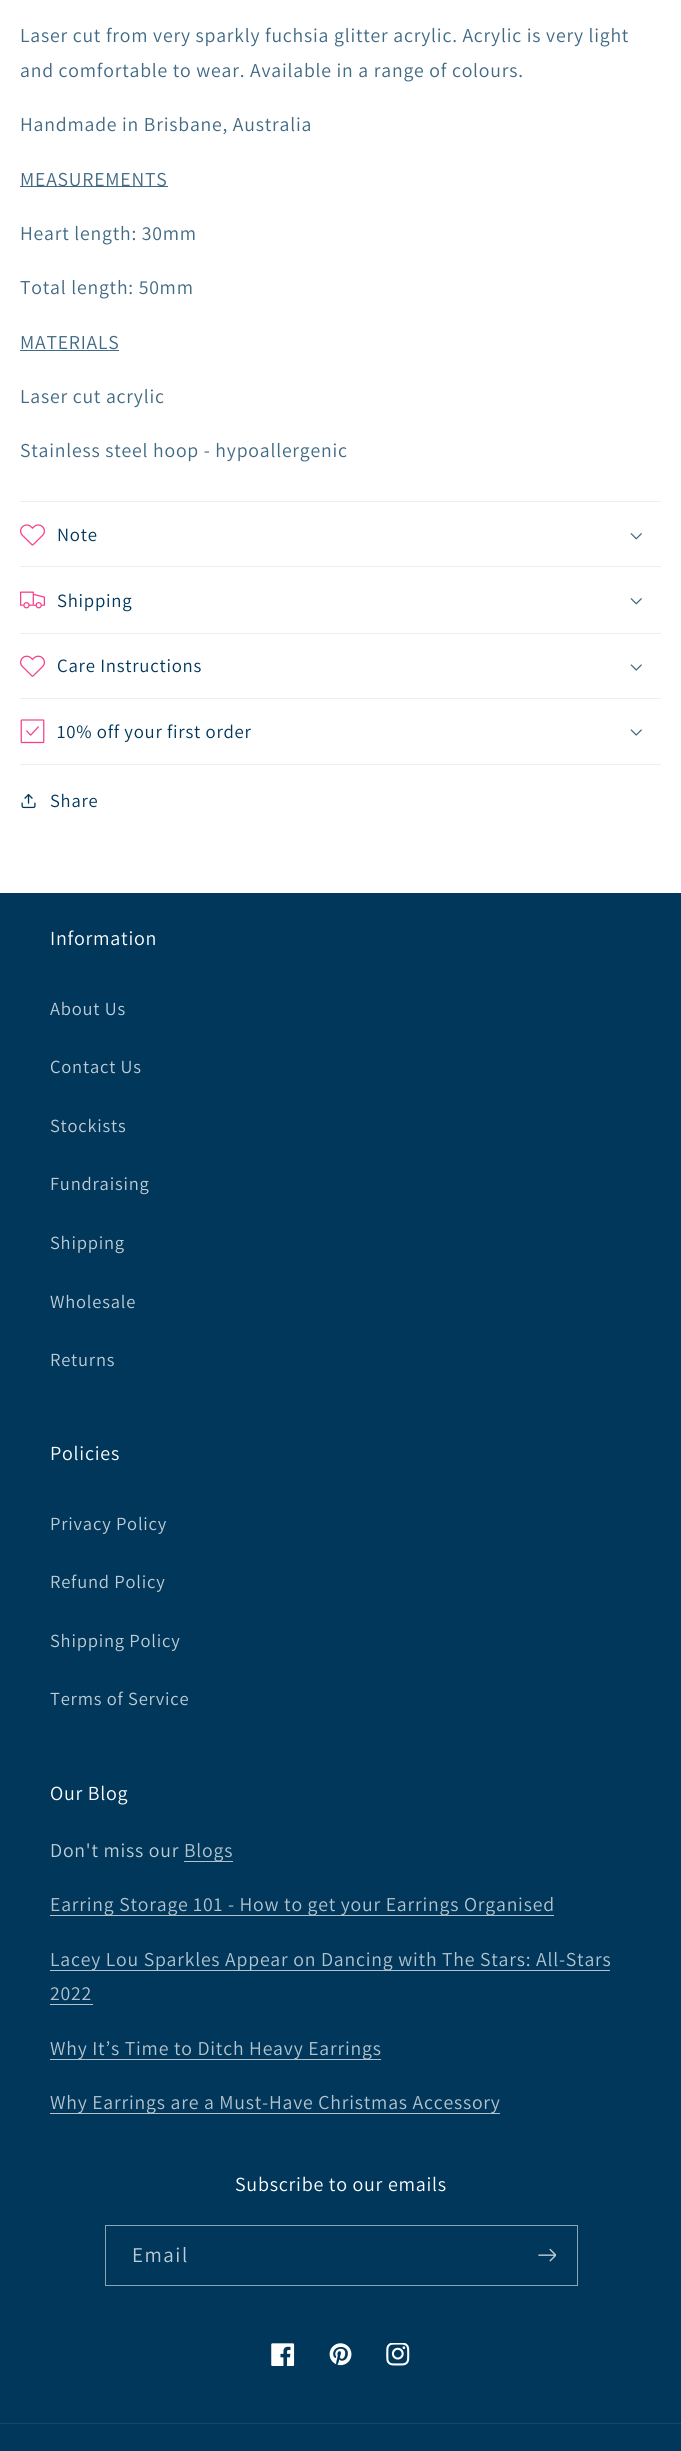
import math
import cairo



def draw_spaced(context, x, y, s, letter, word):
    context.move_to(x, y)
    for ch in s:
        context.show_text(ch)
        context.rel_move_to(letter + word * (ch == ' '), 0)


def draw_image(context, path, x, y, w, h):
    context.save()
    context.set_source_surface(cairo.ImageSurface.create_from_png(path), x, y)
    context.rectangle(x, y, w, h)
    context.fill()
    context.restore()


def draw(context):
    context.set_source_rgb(1, 1, 1)
    context.paint()
    context.set_source_rgb(64 / 255, 105 / 255, 132 / 255)
    context.rectangle(20, 186, 148, 1)
    context.fill()
    context.rectangle(20, 350, 99, 1)
    context.fill()
    context.set_source_rgb(235 / 255, 239 / 255, 242 / 255)
    context.rectangle(20, 501, 641, 1)
    context.fill()
    context.rectangle(20, 566, 641, 1)
    context.fill()
    draw_image(context, "images/1.png", 20, 524, 25, 22)
    draw_image(context, "images/2.png", 630, 533, 12, 7)
    context.rectangle(20, 633, 641, 1)
    context.fill()
    draw_image(context, "images/3.png", 20, 591, 25, 18)
    draw_image(context, "images/2.png", 630, 598, 12, 7)
    context.rectangle(20, 698, 641, 1)
    context.fill()
    draw_image(context, "images/4.png", 20, 655, 25, 22)
    draw_image(context, "images/5.png", 630, 664, 12, 7)
    context.rectangle(20, 764, 641, 1)
    context.fill()
    draw_image(context, "images/6.png", 20, 719, 25, 25)
    draw_image(context, "images/5.png", 630, 729, 12, 7)
    draw_image(context, "images/7.png", 21, 794, 15, 15)
    context.set_source_rgb(0, 55 / 255, 91 / 255)
    context.rectangle(0, 893, 681, 1558)
    context.fill()
    context.set_source_rgb(179 / 255, 195 / 255, 206 / 255)
    context.rectangle(184, 1861, 49, 1)
    context.fill()
    context.rectangle(50, 1915, 504, 1)
    context.fill()
    context.rectangle(50, 1970, 560, 1)
    context.fill()
    context.rectangle(50, 2004, 43, 1)
    context.fill()
    context.rectangle(50, 2059, 331, 1)
    context.fill()
    context.rectangle(50, 2113, 450, 1)
    context.fill()
    context.rectangle(105.5, 2225.5, 472, 60)
    context.set_source_rgb(140 / 255, 165 / 255, 181 / 255)
    context.set_line_width(1)
    context.stroke()
    draw_image(context, "images/8.png", 538, 2248, 18, 14)
    draw_image(context, "images/9.png", 271, 2343, 24, 23)
    draw_image(context, "images/10.png", 329, 2343, 23, 23)
    draw_image(context, "images/11.png", 386, 2343, 24, 23)
    context.set_source_rgb(20 / 255, 71 / 255, 104 / 255)
    context.rectangle(0, 2423, 681, 1)
    context.fill()
    context.select_font_face("Assistant")
    context.set_font_size(19.7)
    context.set_source_rgb(64 / 255, 105 / 255, 132 / 255)
    draw_spaced(context, 20, 42, "Laser cut from very sparkly fuchsia glitter acrylic. Acrylic is very light", 0.8, 0)
    draw_spaced(context, 20, 77, "and comfortable to wear. Available in a range of colours.", 0.8, 0)
    draw_spaced(context, 20, 131, "Handmade in Brisbane, Australia", 0.8, 0)
    draw_spaced(context, 20, 186, "MEASUREMENTS", 0.8, 0)
    draw_spaced(context, 20, 240, "Heart length: 30mm", 0.8, 0)
    draw_spaced(context, 20, 294, "Total length: 50mm", 0.8, 0)
    draw_spaced(context, 20, 349, "MATERIALS", 0.8, 0)
    draw_spaced(context, 20, 403, "Laser cut acrylic", 0.8, 0)
    draw_spaced(context, 20, 457, "Stainless steel hoop - hypoallergenic", 0.8, 0)
    context.set_font_size(18.75)
    context.set_source_rgb(0, 55 / 255, 91 / 255)
    draw_spaced(context, 57, 541, "Note", 0.75, 0)
    draw_spaced(context, 57, 607, "Shipping", 0.75, 0)
    draw_spaced(context, 57, 672, "Care Instructions", 0.75, 0)
    draw_spaced(context, 57, 738, "10% off your first order", 0.75, 0)
    context.set_font_size(18.5)
    draw_spaced(context, 50, 807, "Share", 0.8, 0)
    context.set_font_size(20)
    context.set_source_rgb(1, 1, 1)
    draw_spaced(context, 50, 945, "Information", 0.75, 0)
    context.set_font_size(18.5)
    context.set_source_rgb(191 / 255, 205 / 255, 214 / 255)
    draw_spaced(context, 50, 1015, "About Us", 0.8, 0)
    draw_spaced(context, 50, 1073, "Contact Us", 0.8, 0)
    draw_spaced(context, 50, 1132, "Stockists", 0.8, 0)
    draw_spaced(context, 50, 1190, "Fundraising", 0.8, 0)
    draw_spaced(context, 50, 1249, "Shipping", 0.8, 0)
    draw_spaced(context, 50, 1308, "Wholesale", 0.8, 0)
    draw_spaced(context, 50, 1366, "Returns", 0.8, 0)
    context.set_font_size(20)
    context.set_source_rgb(1, 1, 1)
    draw_spaced(context, 50, 1460, "Policies", 0.75, 0)
    context.set_font_size(18.5)
    context.set_source_rgb(191 / 255, 205 / 255, 214 / 255)
    draw_spaced(context, 50, 1530, "Privacy Policy", 0.8, 0)
    draw_spaced(context, 50, 1588, "Refund Policy", 0.8, 0)
    draw_spaced(context, 50, 1647, "Shipping Policy", 0.8, 0)
    draw_spaced(context, 50, 1705, "Terms of Service", 0.8, 0)
    context.set_font_size(20)
    context.set_source_rgb(1, 1, 1)
    draw_spaced(context, 50, 1800, "Our Blog", 0.75, 0)
    context.set_font_size(19.7)
    context.set_source_rgb(191 / 255, 205 / 255, 214 / 255)
    draw_spaced(context, 50, 1857, "Don't miss our", 0.8, 0)
    context.set_source_rgb(179 / 255, 196 / 255, 206 / 255)
    draw_spaced(context, 184, 1857, "Blogs", 0.8, 0)
    draw_spaced(context, 50, 1911, "Earring Storage 101 - How to get your Earrings Organised", 0.8, 0)
    draw_spaced(context, 50, 1966, "Lacey Lou Sparkles Appear on Dancing with The Stars: All-Stars", 0.8, 0)
    draw_spaced(context, 50, 2000, "2022", 0.8, 0)
    draw_spaced(context, 50, 2055, "Why It’s Time to Ditch Heavy Earrings", 0.8, 0)
    draw_spaced(context, 50, 2109, "Why Earrings are a Must-Have Christmas Accessory", 0.8, 0)
    context.set_font_size(20)
    context.set_source_rgb(1, 1, 1)
    draw_spaced(context, 235, 2191, "Subscribe to our emails", 0.75, 0)
    context.set_font_size(21)
    context.set_source_rgb(191 / 255, 205 / 255, 214 / 255)
    draw_spaced(context, 132, 2262, "Email", 1.5, 0)


surface = cairo.ImageSurface(cairo.Format.RGB24, 681, 2451)
context = cairo.Context(surface)
options = cairo.FontOptions()
options.set_hint_metrics(cairo.HintMetrics.OFF)
options.set_hint_style(cairo.HintStyle.NONE)
context.set_font_options(options)
context.set_miter_limit(4)
draw(context)
surface.write_to_png("out.png")
